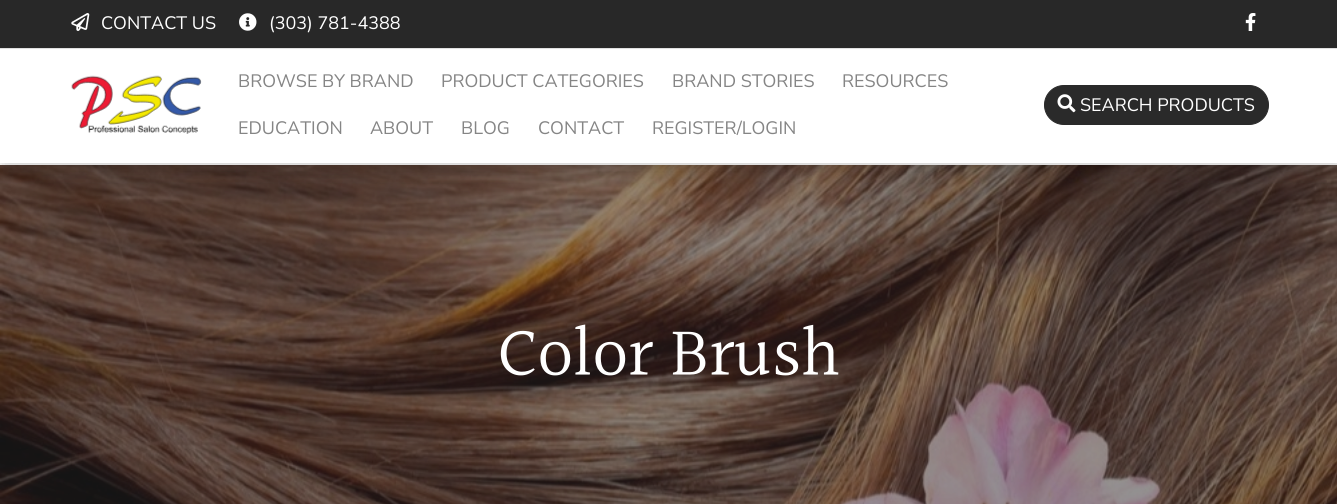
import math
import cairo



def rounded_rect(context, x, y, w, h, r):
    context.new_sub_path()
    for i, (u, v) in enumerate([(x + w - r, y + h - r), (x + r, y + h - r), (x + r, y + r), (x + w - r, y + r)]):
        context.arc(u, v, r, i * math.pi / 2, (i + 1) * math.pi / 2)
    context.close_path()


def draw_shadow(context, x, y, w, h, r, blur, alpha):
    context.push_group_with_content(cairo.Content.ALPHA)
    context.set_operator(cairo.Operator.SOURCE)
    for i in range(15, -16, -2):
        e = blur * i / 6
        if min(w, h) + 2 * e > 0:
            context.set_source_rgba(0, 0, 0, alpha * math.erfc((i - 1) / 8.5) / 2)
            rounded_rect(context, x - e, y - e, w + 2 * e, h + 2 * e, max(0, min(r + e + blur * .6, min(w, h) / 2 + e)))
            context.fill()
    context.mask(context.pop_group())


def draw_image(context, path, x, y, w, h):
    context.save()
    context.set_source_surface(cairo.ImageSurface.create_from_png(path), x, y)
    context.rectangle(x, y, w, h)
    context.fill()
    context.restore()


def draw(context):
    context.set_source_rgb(1, 1, 1)
    context.paint()
    draw_image(context, "images/6.png", 0, 165, 1337, 339)
    context.set_source_rgb(0, 0, 0)
    draw_shadow(context, 3, 5, 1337, 163, 0, 9, 0.2)
    context.set_source_rgb(1, 1, 1)
    context.rectangle(0, 49, 1337, 114)
    context.fill()
    context.set_source_rgb(40 / 255, 40 / 255, 40 / 255)
    context.rectangle(0, 0, 1337, 48)
    context.fill()
    context.set_source_rgb(224 / 255, 224 / 255, 224 / 255)
    context.rectangle(0, 48, 1337, 1)
    context.fill()
    draw_image(context, "images/1.png", 71, 13, 19, 18)
    draw_image(context, "images/2.png", 239, 13, 18, 18)
    draw_image(context, "images/3.png", 1245, 13, 11, 18)
    draw_image(context, "images/4.png", 71, 75, 131, 59)
    context.set_source_rgb(42 / 255, 42 / 255, 42 / 255)
    rounded_rect(context, 1044.5, 85.5, 224, 39, 19.5)
    context.fill_preserve()
    context.set_line_width(1)
    context.stroke()
    draw_image(context, "images/5.png", 1057, 94, 19, 19)
    context.select_font_face("Nunito Sans")
    context.set_font_size(18)
    context.set_source_rgb(1, 1, 1)
    context.move_to(101, 29)
    context.show_text("CONTACT US")
    context.move_to(269, 29)
    context.show_text("(303) 781-4388")
    context.set_source_rgb(133 / 255, 133 / 255, 133 / 255)
    context.move_to(238, 87)
    context.show_text("BROWSE BY BRAND")
    context.move_to(441, 87)
    context.show_text("PRODUCT CATEGORIES")
    context.move_to(672, 87)
    context.show_text("BRAND STORIES")
    context.move_to(842, 87)
    context.show_text("RESOURCES")
    context.move_to(238, 134)
    context.show_text("EDUCATION")
    context.move_to(370, 134)
    context.show_text("ABOUT")
    context.move_to(461, 134)
    context.show_text("BLOG")
    context.move_to(538, 134)
    context.show_text("CONTACT")
    context.move_to(652, 134)
    context.show_text("REGISTER/LOGIN")
    context.set_source_rgb(1, 1, 1)
    context.move_to(1080, 111)
    context.show_text("SEARCH PRODUCTS")
    context.select_font_face("Halant")
    context.set_font_size(70)
    context.move_to(497, 378)
    context.show_text("Color Brush")


surface = cairo.ImageSurface(cairo.Format.RGB24, 1337, 504)
context = cairo.Context(surface)
options = cairo.FontOptions()
options.set_hint_metrics(cairo.HintMetrics.OFF)
options.set_hint_style(cairo.HintStyle.NONE)
context.set_font_options(options)
context.set_miter_limit(4)
draw(context)
surface.write_to_png("out.png")
